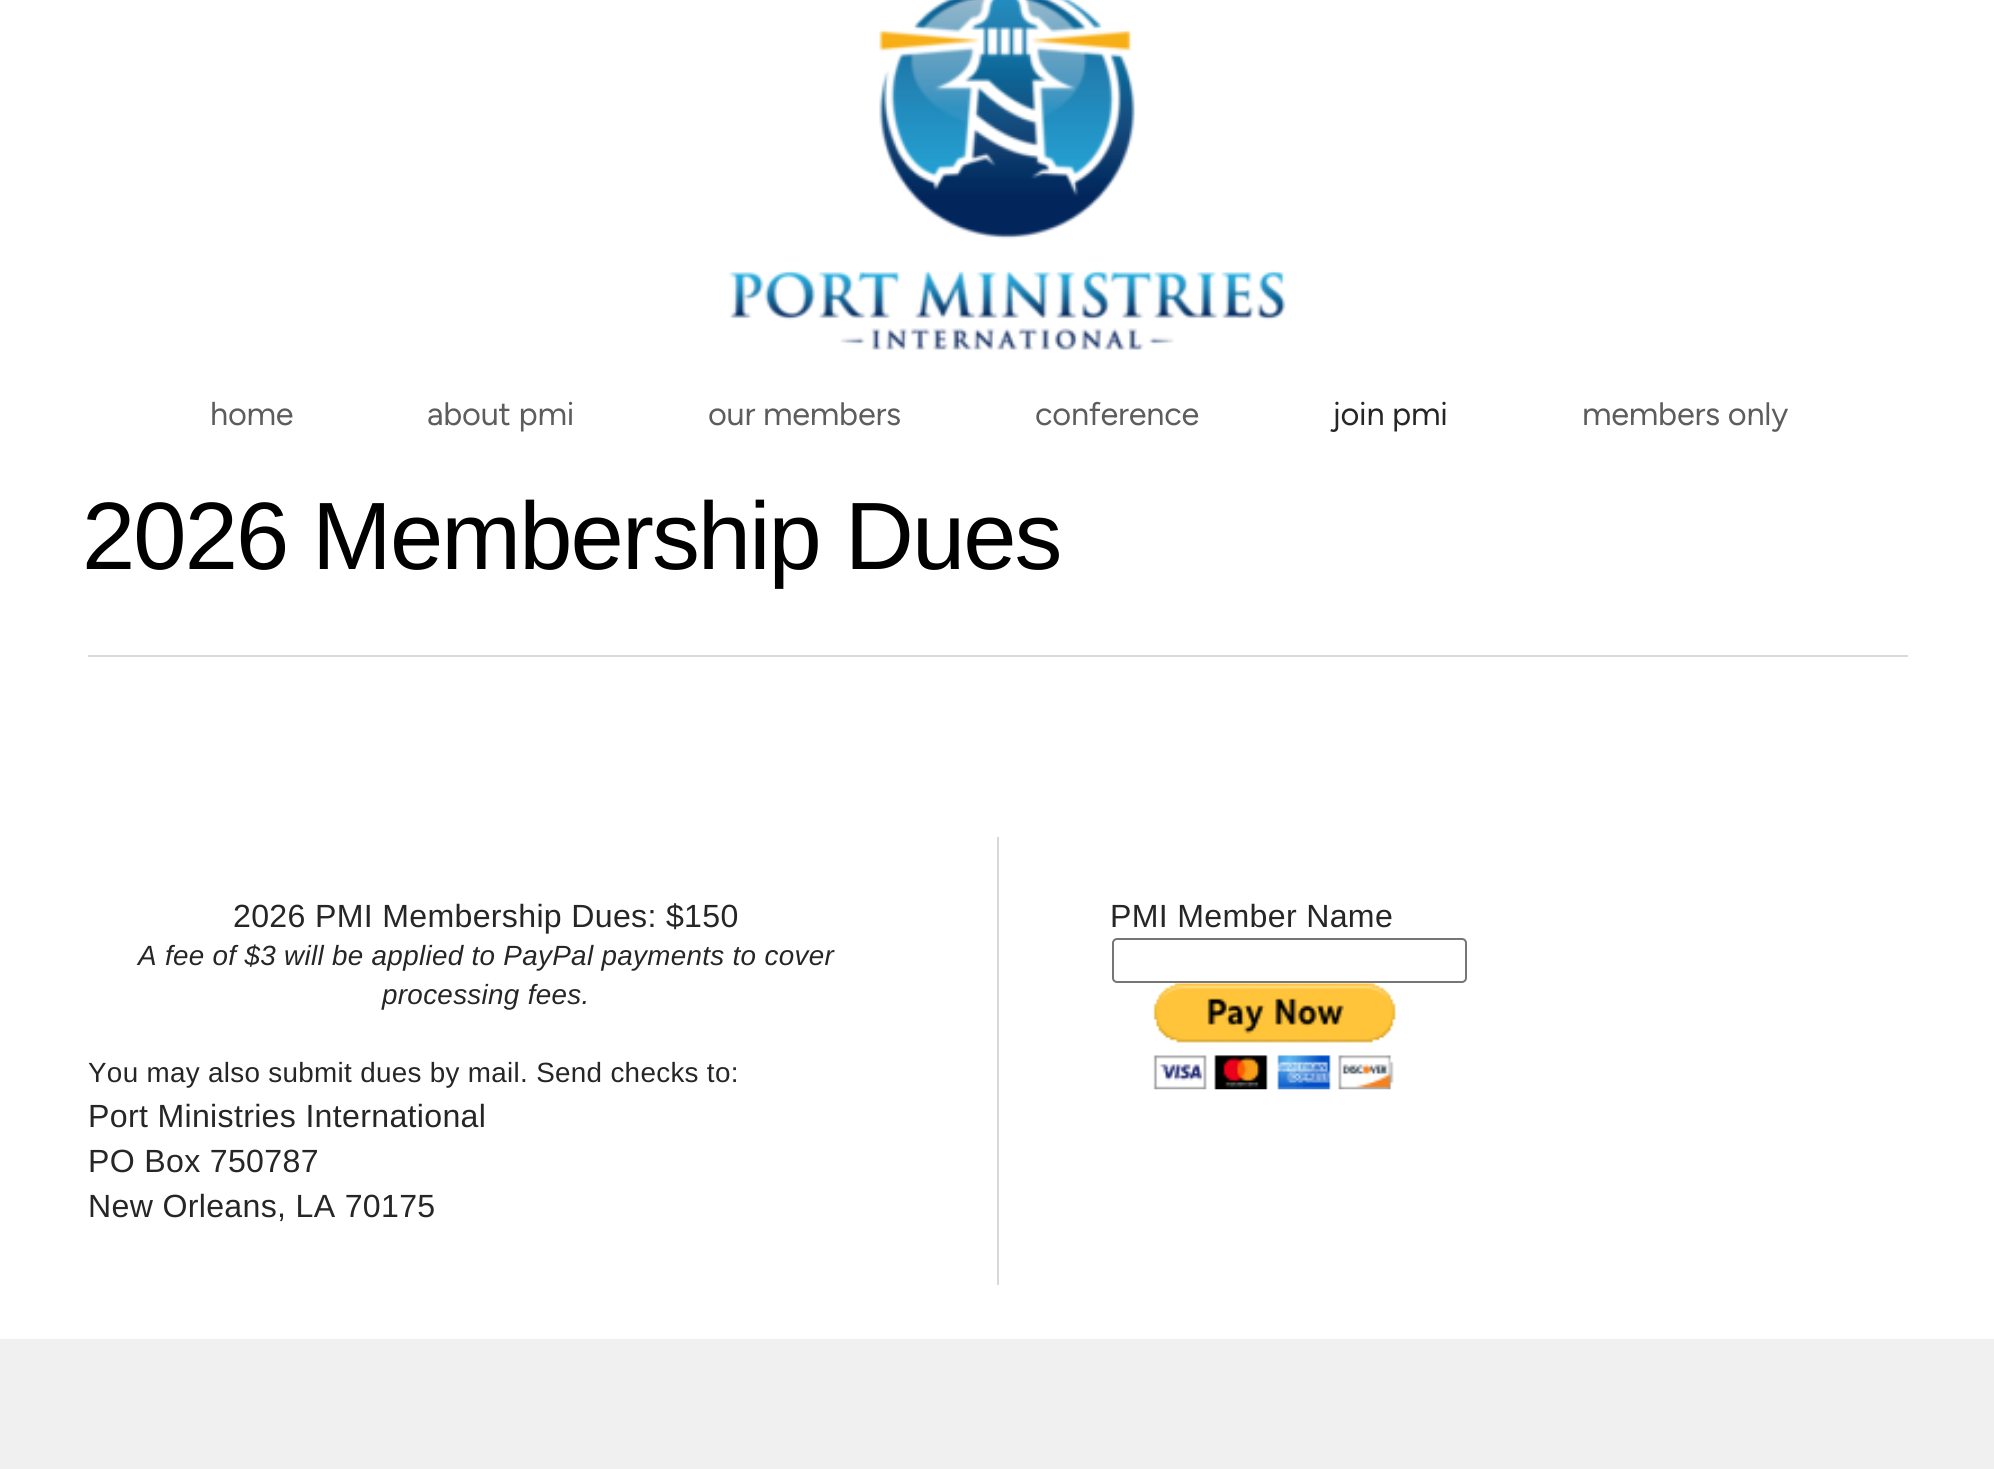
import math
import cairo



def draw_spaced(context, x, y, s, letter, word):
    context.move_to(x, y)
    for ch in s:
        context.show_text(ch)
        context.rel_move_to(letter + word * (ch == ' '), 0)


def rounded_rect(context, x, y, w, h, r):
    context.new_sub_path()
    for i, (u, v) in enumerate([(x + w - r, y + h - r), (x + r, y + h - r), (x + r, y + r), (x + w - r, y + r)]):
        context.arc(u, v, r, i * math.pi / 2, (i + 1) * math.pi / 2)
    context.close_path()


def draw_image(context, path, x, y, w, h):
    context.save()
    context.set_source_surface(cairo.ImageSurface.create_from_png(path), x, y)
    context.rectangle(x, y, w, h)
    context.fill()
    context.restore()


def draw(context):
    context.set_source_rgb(240 / 255, 240 / 255, 240 / 255)
    context.paint()
    context.set_source_rgb(1, 1, 1)
    context.rectangle(0, 0, 1994, 1339)
    context.fill()
    draw_image(context, "images/1.png", 728, 0, 558, 351)
    context.set_source_rgb(217 / 255, 217 / 255, 217 / 255)
    context.rectangle(88, 655, 1820, 2)
    context.fill()
    context.rectangle(997, 837, 2, 448)
    context.fill()
    rounded_rect(context, 1113, 939, 353, 43, 4)
    context.set_source_rgb(118 / 255, 118 / 255, 118 / 255)
    context.stroke()
    draw_image(context, "images/2.png", 1153, 983, 243, 107)
    context.select_font_face("Figtree Light")
    context.set_font_size(32.5)
    context.set_source_rgb(93 / 255, 93 / 255, 93 / 255)
    draw_spaced(context, 210, 425, "home", -0.25, 0)
    draw_spaced(context, 427, 425, "about pmi", -0.25, 0)
    draw_spaced(context, 708, 425, "our members", -0.25, 0)
    draw_spaced(context, 1035, 425, "conference", -0.25, 0)
    context.set_source_rgb(38 / 255, 38 / 255, 38 / 255)
    draw_spaced(context, 1332, 425, "join pmi", -0.25, 0)
    context.set_source_rgb(93 / 255, 93 / 255, 93 / 255)
    draw_spaced(context, 1582, 425, "members only", -0.25, 0)
    context.select_font_face("Liberation Sans")
    context.set_font_size(95.75)
    context.set_source_rgb(0, 0, 0)
    draw_spaced(context, 82, 569, "2026 Membership Dues", -1.9, 0)
    context.set_font_size(32.1)
    context.set_source_rgb(38 / 255, 38 / 255, 38 / 255)
    draw_spaced(context, 233, 927, "2026 PMI Membership Dues: $150", 0.32, 0)
    context.select_font_face("Liberation Sans", cairo.FontSlant.ITALIC)
    context.set_font_size(27.8)
    draw_spaced(context, 138, 965, "A fee of $3 will be applied to PayPal payments to cover", 0.32, 0)
    draw_spaced(context, 382, 1004, "processing fees.", 0.32, 0)
    context.select_font_face("Liberation Sans")
    draw_spaced(context, 88, 1082, "You may also submit dues by mail. Send checks to:", 0.32, 0)
    context.set_font_size(32.1)
    draw_spaced(context, 88, 1127, "Port Ministries International", 0.32, 0)
    draw_spaced(context, 88, 1172, "PO Box 750787", 0.32, 0)
    draw_spaced(context, 88, 1217, "New Orleans, LA 70175", 0.32, 0)
    draw_spaced(context, 1110, 927, "PMI Member Name", 0.32, 0)


surface = cairo.ImageSurface(cairo.Format.RGB24, 1994, 1469)
context = cairo.Context(surface)
options = cairo.FontOptions()
options.set_hint_metrics(cairo.HintMetrics.OFF)
options.set_hint_style(cairo.HintStyle.NONE)
context.set_font_options(options)
context.set_miter_limit(4)
draw(context)
surface.write_to_png("out.png")
